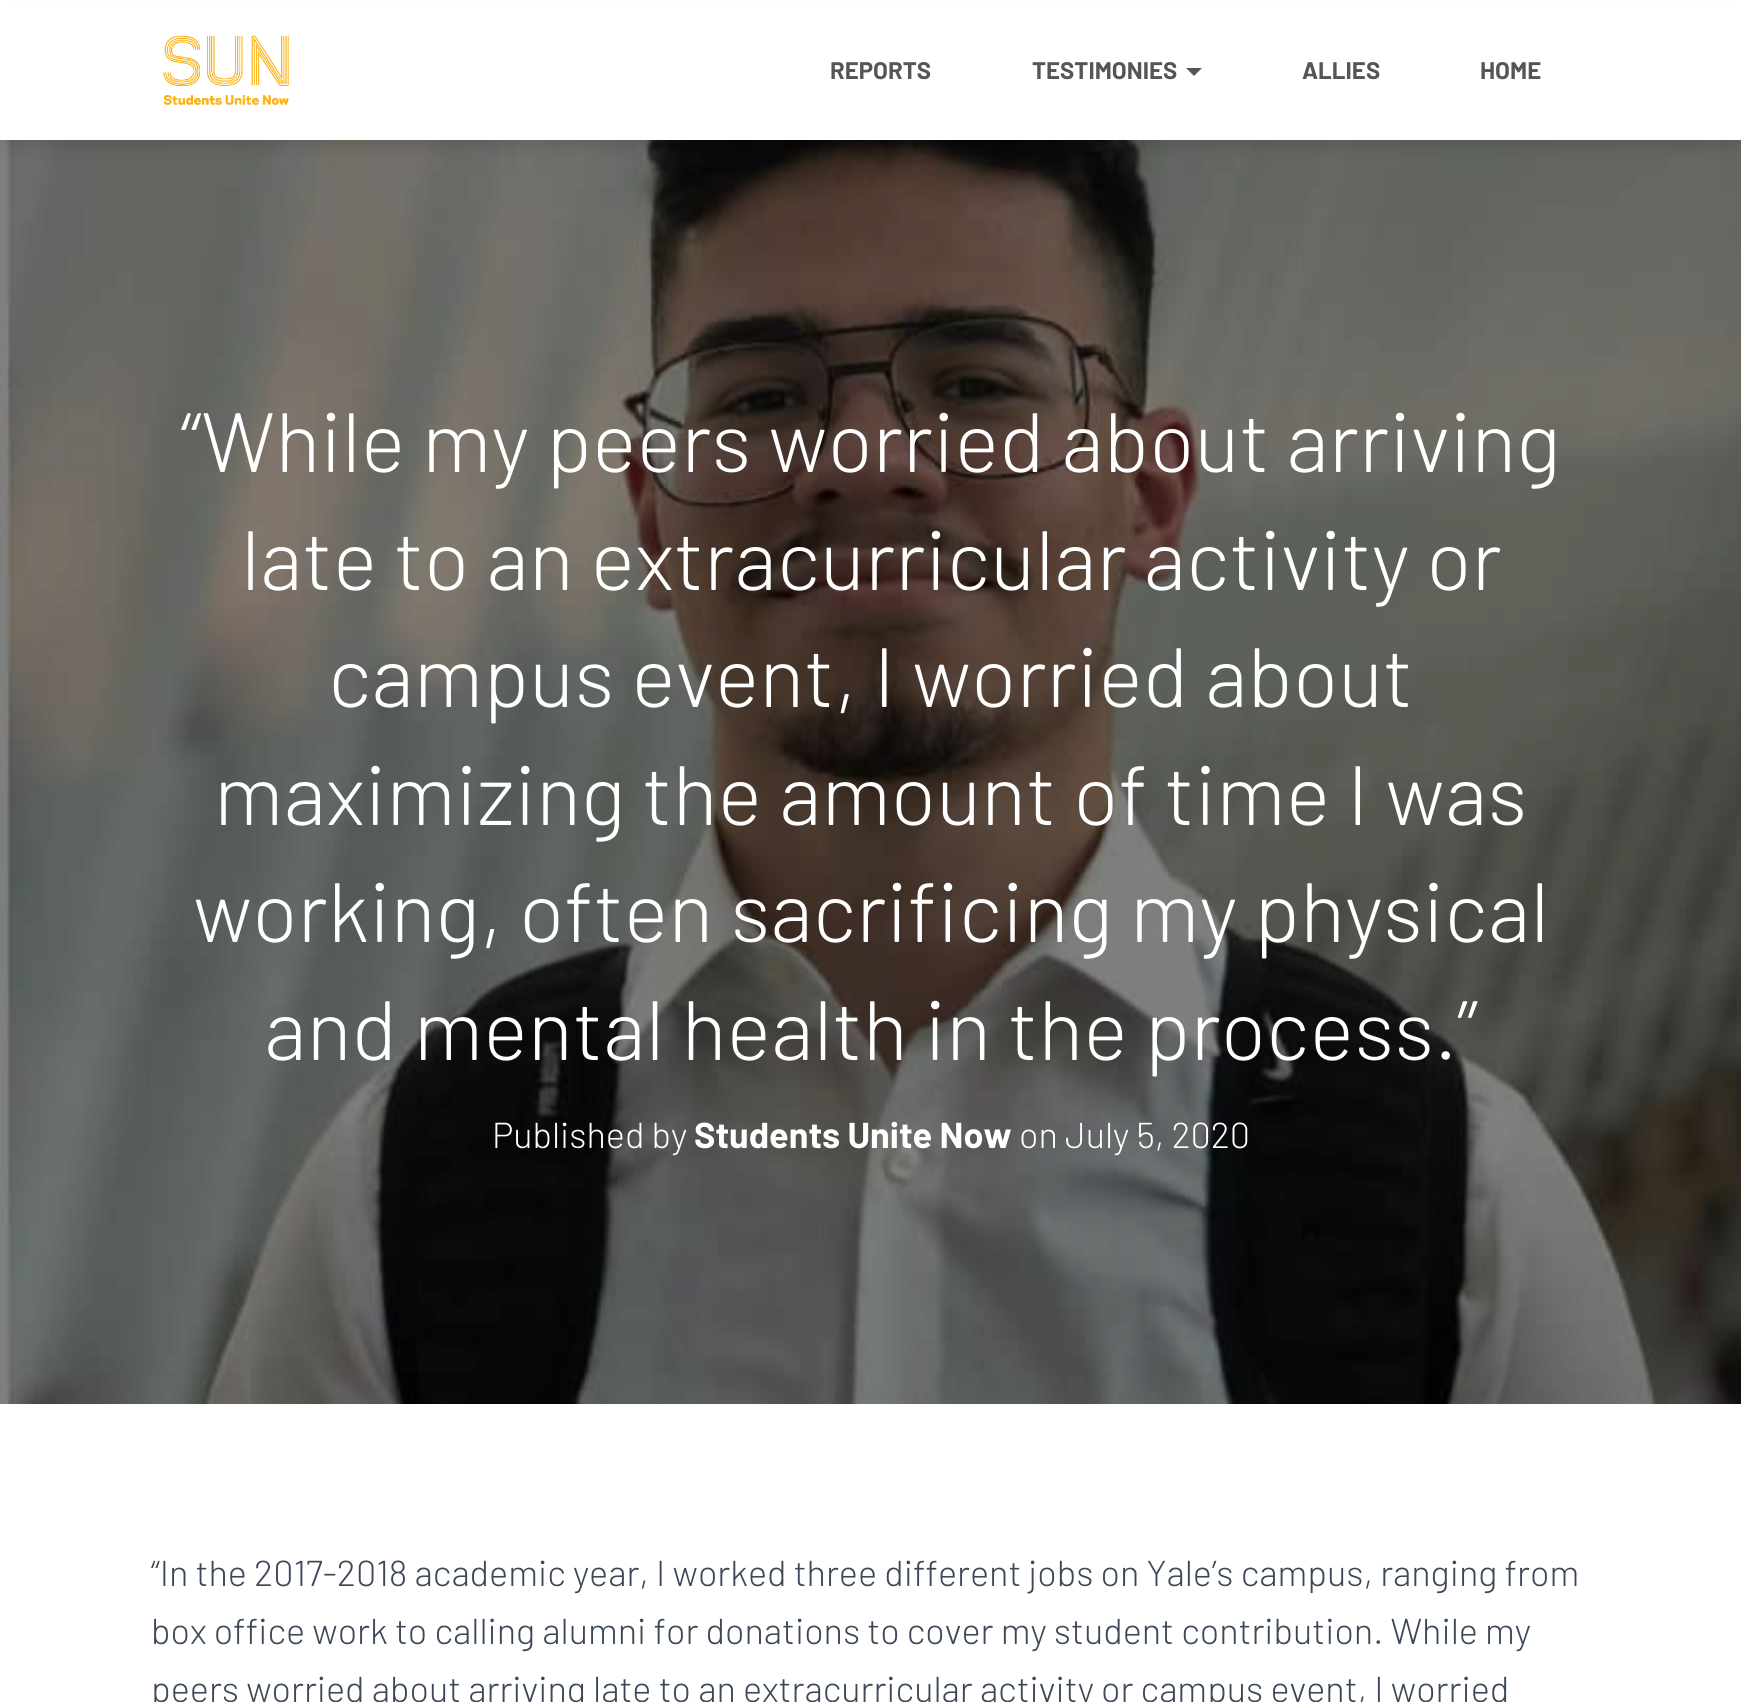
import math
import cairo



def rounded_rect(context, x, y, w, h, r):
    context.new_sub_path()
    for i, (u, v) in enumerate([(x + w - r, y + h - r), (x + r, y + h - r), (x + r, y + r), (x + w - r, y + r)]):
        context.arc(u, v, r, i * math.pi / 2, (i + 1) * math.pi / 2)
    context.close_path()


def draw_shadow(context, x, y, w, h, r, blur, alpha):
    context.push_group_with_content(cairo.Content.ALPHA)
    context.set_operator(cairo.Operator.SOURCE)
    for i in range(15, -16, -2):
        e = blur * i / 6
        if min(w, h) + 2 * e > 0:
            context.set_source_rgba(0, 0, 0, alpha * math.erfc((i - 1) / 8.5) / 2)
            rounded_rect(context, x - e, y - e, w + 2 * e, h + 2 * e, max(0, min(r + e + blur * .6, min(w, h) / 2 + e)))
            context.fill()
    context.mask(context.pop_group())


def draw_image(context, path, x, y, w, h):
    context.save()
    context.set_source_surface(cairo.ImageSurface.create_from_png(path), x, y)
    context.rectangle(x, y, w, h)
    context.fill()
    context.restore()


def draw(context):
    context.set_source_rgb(1, 1, 1)
    context.paint()
    draw_image(context, "images/2.png", 0, 140, 1741, 1264)
    context.set_source_rgb(0, 0, 0)
    draw_shadow(context, 8, 20, 1726, 124, 0, 10, 0.15)
    context.set_source_rgb(1, 1, 1)
    context.rectangle(0, 5, 1741, 135)
    context.fill()
    draw_image(context, "images/1.png", 163, 35, 126, 70)
    context.set_source_rgb(85 / 255, 85 / 255, 85 / 255)
    context.new_path()
    context.move_to(1186, 68)
    context.line_to(1202, 68)
    context.line_to(1194, 76)
    context.close_path()
    context.fill()
    context.select_font_face("Barlow", cairo.FontSlant.NORMAL, cairo.FontWeight.BOLD)
    context.set_font_size(24)
    context.move_to(830, 79)
    context.show_text("REPORTS")
    context.move_to(1032, 79)
    context.show_text("TESTIMONIES")
    context.move_to(1302, 79)
    context.show_text("ALLIES")
    context.move_to(1480, 79)
    context.show_text("HOME")
    context.select_font_face("Barlow Light")
    context.set_font_size(84)
    context.set_source_rgb(1, 1, 1)
    context.move_to(181, 472)
    context.show_text("“While my peers worried about arriving")
    context.move_to(241, 590)
    context.show_text("late to an extracurricular activity or")
    context.move_to(328, 707)
    context.show_text("campus event, I worried about")
    context.move_to(214, 825)
    context.show_text("maximizing the amount of time I was")
    context.move_to(193, 942)
    context.show_text("working, often sacrificing my physical")
    context.move_to(264, 1060)
    context.show_text("and mental health in the process.”")
    context.set_font_size(36)
    context.move_to(492, 1148)
    context.show_text("Published by")
    context.select_font_face("Barlow", cairo.FontSlant.NORMAL, cairo.FontWeight.BOLD)
    context.move_to(694, 1148)
    context.show_text("Students Unite Now")
    context.select_font_face("Barlow Light")
    context.move_to(1019, 1148)
    context.show_text("on July 5, 2020")
    context.set_source_rgb(60 / 255, 72 / 255, 88 / 255)
    context.move_to(151, 1586)
    context.show_text("“In the 2017-2018 academic year, I worked three different jobs on Yale’s campus, ranging from")
    context.move_to(151, 1644)
    context.show_text("box office work to calling alumni for donations to cover my student contribution. While my")
    context.move_to(151, 1702)
    context.show_text("peers worried about arriving late to an extracurricular activity or campus event, I worried")


surface = cairo.ImageSurface(cairo.Format.RGB24, 1741, 1702)
context = cairo.Context(surface)
options = cairo.FontOptions()
options.set_hint_metrics(cairo.HintMetrics.OFF)
options.set_hint_style(cairo.HintStyle.NONE)
context.set_font_options(options)
context.set_miter_limit(4)
draw(context)
surface.write_to_png("out.png")
